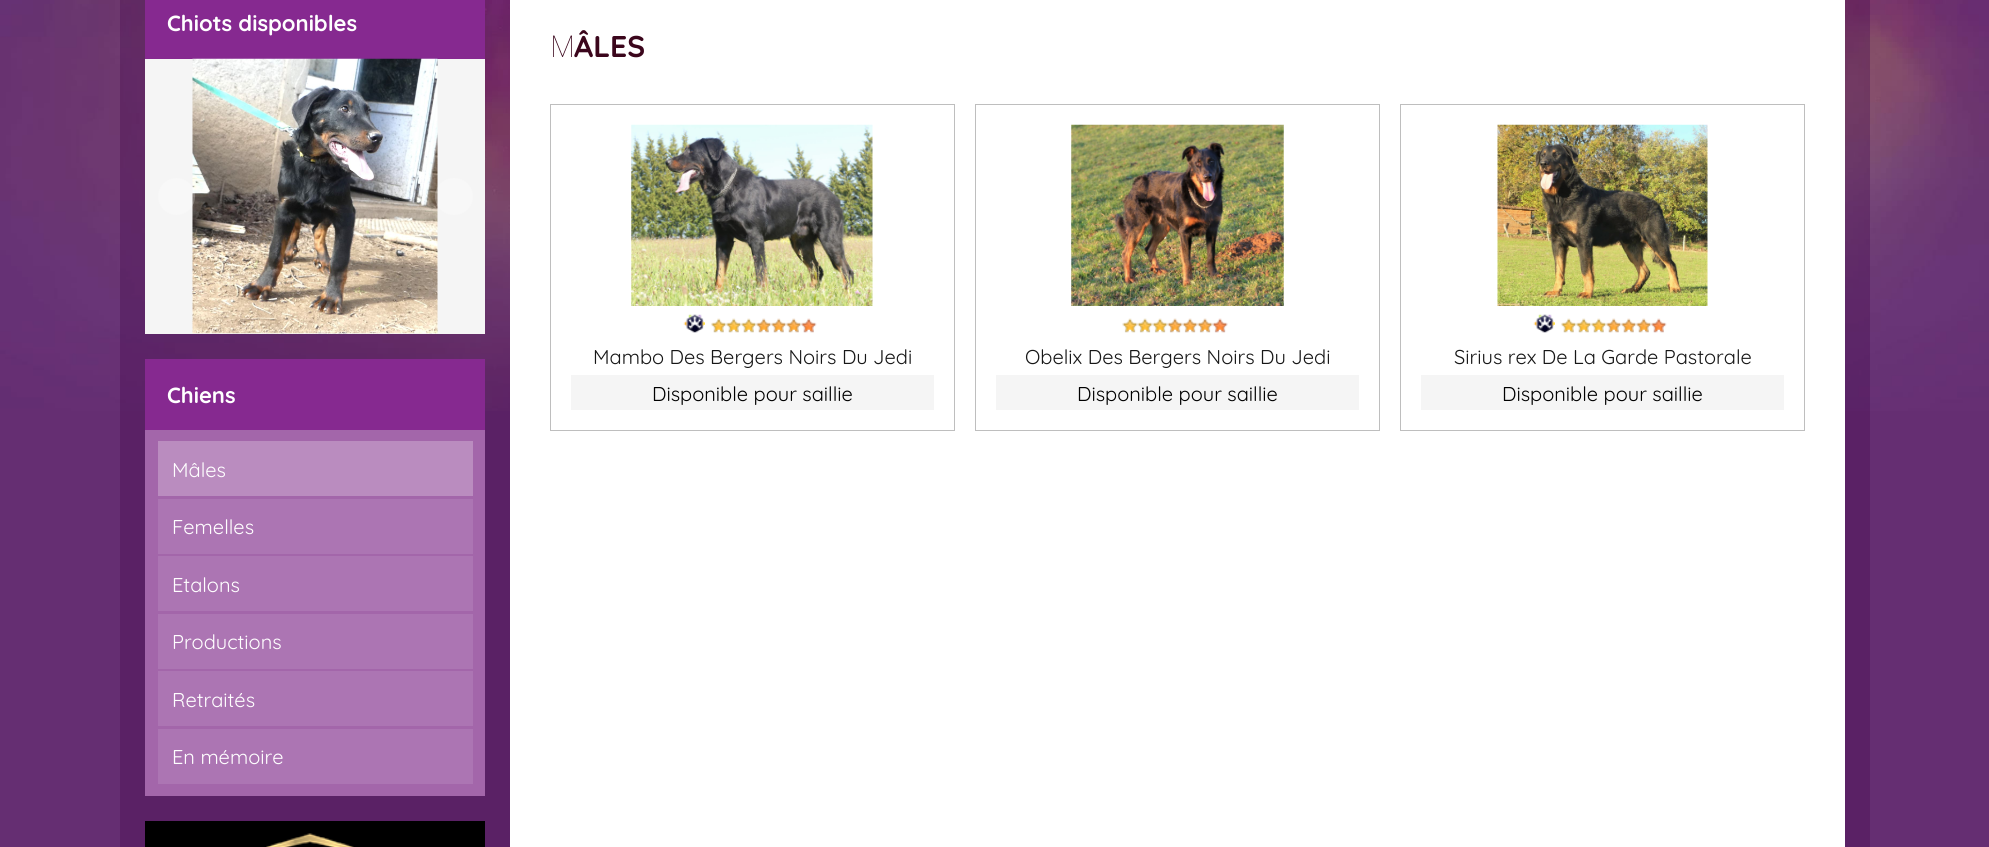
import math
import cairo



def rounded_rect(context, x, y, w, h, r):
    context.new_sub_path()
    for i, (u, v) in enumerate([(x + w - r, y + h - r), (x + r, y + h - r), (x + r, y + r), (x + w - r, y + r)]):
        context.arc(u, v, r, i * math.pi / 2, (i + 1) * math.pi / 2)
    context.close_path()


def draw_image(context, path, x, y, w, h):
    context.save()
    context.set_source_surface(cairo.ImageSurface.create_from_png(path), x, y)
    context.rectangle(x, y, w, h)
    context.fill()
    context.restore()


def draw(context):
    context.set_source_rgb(101 / 255, 46 / 255, 114 / 255)
    context.paint()
    draw_image(context, "images/1.png", 0, 0, 1989, 411)
    context.set_source_rgba(70 / 255, 10 / 255, 77 / 255, 0.35)
    context.rectangle(120, 0, 1750, 847)
    context.fill()
    context.set_source_rgb(134 / 255, 41 / 255, 144 / 255)
    context.rectangle(145, 0, 340, 59)
    context.fill()
    context.set_source_rgb(245 / 255, 245 / 255, 245 / 255)
    context.rectangle(145, 59, 340, 275)
    context.fill()
    draw_image(context, "images/2.png", 192, 58, 246, 276)
    context.set_source_rgba(1, 1, 1, 0.25)
    context.arc(176.5, 196.5, 18.5, 0, 2 * math.pi)
    context.fill()
    rounded_rect(context, 435, 178, 38, 37, 18.5)
    context.fill()
    context.set_source_rgb(163 / 255, 102 / 255, 170 / 255)
    context.rectangle(145, 430, 340, 366)
    context.fill()
    context.set_source_rgb(134 / 255, 41 / 255, 144 / 255)
    context.rectangle(145, 359, 340, 71)
    context.fill()
    context.set_source_rgb(186 / 255, 140 / 255, 191 / 255)
    context.rectangle(158, 441, 315, 55)
    context.fill()
    context.set_source_rgb(172 / 255, 117 / 255, 179 / 255)
    context.rectangle(158, 499, 315, 55)
    context.fill()
    context.rectangle(158, 556, 315, 55)
    context.fill()
    context.rectangle(158, 614, 315, 55)
    context.fill()
    context.rectangle(158, 671, 315, 55)
    context.fill()
    context.rectangle(158, 729, 315, 55)
    context.fill()
    context.set_source_rgb(0, 0, 0)
    context.rectangle(145, 821, 340, 26)
    context.fill()
    draw_image(context, "images/3.png", 266, 833, 88, 14)
    context.set_source_rgb(1, 1, 1)
    context.rectangle(510, 0, 1335, 847)
    context.fill()
    context.rectangle(550.5, 104.5, 404, 326)
    context.set_source_rgb(190 / 255, 190 / 255, 190 / 255)
    context.set_line_width(1)
    context.stroke()
    draw_image(context, "images/4.png", 631, 124, 242, 182)
    draw_image(context, "images/5.png", 683, 314, 22, 19)
    draw_image(context, "images/6.png", 711, 318, 106, 15)
    context.set_source_rgb(245 / 255, 245 / 255, 245 / 255)
    context.rectangle(571, 375, 363, 35)
    context.fill()
    context.rectangle(975.5, 104.5, 404, 326)
    context.set_source_rgb(190 / 255, 190 / 255, 190 / 255)
    context.stroke()
    draw_image(context, "images/7.png", 1071, 124, 213, 182)
    draw_image(context, "images/8.png", 1122, 318, 106, 15)
    context.set_source_rgb(245 / 255, 245 / 255, 245 / 255)
    context.rectangle(996, 375, 363, 35)
    context.fill()
    context.rectangle(1400.5, 104.5, 404, 326)
    context.set_source_rgb(190 / 255, 190 / 255, 190 / 255)
    context.stroke()
    draw_image(context, "images/9.png", 1497, 124, 211, 182)
    draw_image(context, "images/10.png", 1533, 314, 22, 19)
    draw_image(context, "images/6.png", 1561, 318, 106, 15)
    context.set_source_rgb(245 / 255, 245 / 255, 245 / 255)
    context.rectangle(1421, 375, 363, 35)
    context.fill()
    context.select_font_face("Quicksand", cairo.FontSlant.NORMAL, cairo.FontWeight.BOLD)
    context.set_font_size(22)
    context.set_source_rgb(1, 1, 1)
    context.move_to(167, 31)
    context.show_text("Chiots disponibles")
    context.move_to(167, 403)
    context.show_text("Chiens")
    context.select_font_face("Quicksand")
    context.set_font_size(20)
    context.move_to(172, 477)
    context.show_text("Mâles")
    context.move_to(172, 534)
    context.show_text("Femelles")
    context.move_to(172, 592)
    context.show_text("Etalons")
    context.move_to(172, 649)
    context.show_text("Productions")
    context.move_to(172, 707)
    context.show_text("Retraités")
    context.move_to(172, 764)
    context.show_text("En mémoire")
    context.select_font_face("Noto Sans Thin")
    context.set_font_size(30)
    context.set_source_rgb(59 / 255, 6 / 255, 28 / 255)
    context.move_to(550, 57)
    context.show_text("M")
    context.select_font_face("Quicksand", cairo.FontSlant.NORMAL, cairo.FontWeight.BOLD)
    context.move_to(574, 57)
    context.show_text("ÂLES")
    context.select_font_face("Quicksand")
    context.set_font_size(20)
    context.set_source_rgb(23 / 255, 23 / 255, 23 / 255)
    context.move_to(593, 364)
    context.show_text("Mambo Des Bergers Noirs Du Jedi")
    context.set_source_rgb(0, 0, 0)
    context.move_to(652, 401)
    context.show_text("Disponible pour saillie")
    context.set_source_rgb(23 / 255, 23 / 255, 23 / 255)
    context.move_to(1025, 364)
    context.show_text("Obelix Des Bergers Noirs Du Jedi")
    context.set_source_rgb(0, 0, 0)
    context.move_to(1077, 401)
    context.show_text("Disponible pour saillie")
    context.set_source_rgb(23 / 255, 23 / 255, 23 / 255)
    context.move_to(1454, 364)
    context.show_text("Sirius rex De La Garde Pastorale")
    context.set_source_rgb(0, 0, 0)
    context.move_to(1502, 401)
    context.show_text("Disponible pour saillie")


surface = cairo.ImageSurface(cairo.Format.RGB24, 1989, 847)
context = cairo.Context(surface)
options = cairo.FontOptions()
options.set_hint_metrics(cairo.HintMetrics.OFF)
options.set_hint_style(cairo.HintStyle.NONE)
context.set_font_options(options)
context.set_miter_limit(4)
draw(context)
surface.write_to_png("out.png")
